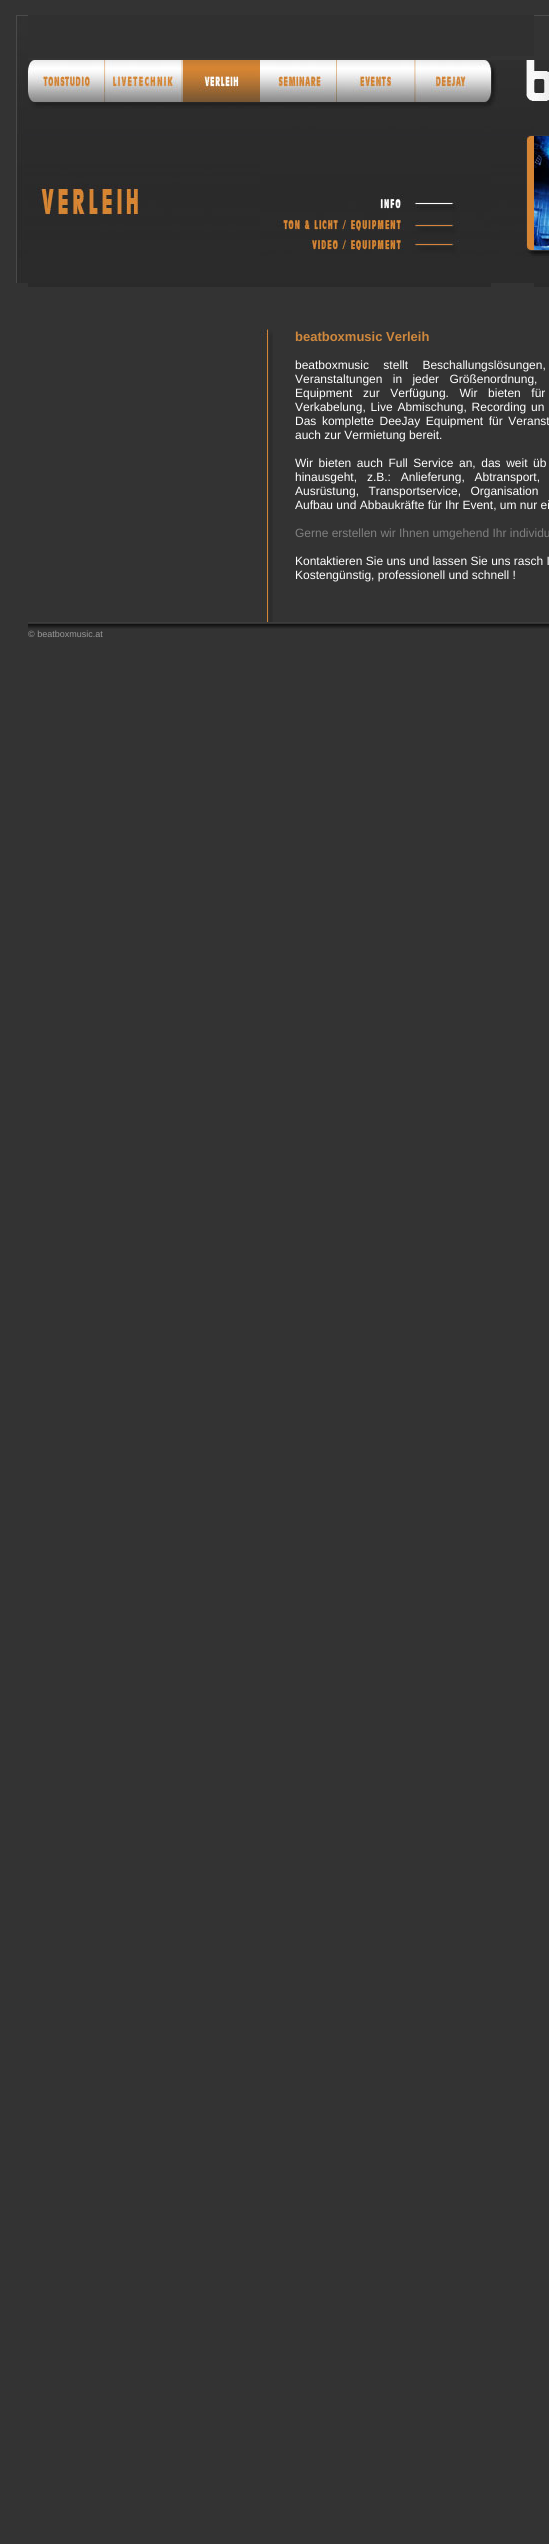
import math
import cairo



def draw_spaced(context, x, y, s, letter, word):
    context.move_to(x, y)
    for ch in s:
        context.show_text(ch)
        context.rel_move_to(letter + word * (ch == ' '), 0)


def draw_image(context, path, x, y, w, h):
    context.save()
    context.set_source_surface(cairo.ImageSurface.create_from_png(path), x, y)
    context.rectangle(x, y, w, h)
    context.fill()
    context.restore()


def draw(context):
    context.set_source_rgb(51 / 255, 51 / 255, 51 / 255)
    context.paint()
    draw_image(context, "images/1.png", 16, 15, 12, 45)
    context.set_source_rgb(48 / 255, 48 / 255, 48 / 255)
    context.rectangle(28, 15, 463, 43)
    context.fill()
    context.rectangle(491, 15, 43, 41)
    context.fill()
    context.set_source_rgb(75 / 255, 75 / 255, 75 / 255)
    context.rectangle(534, 15, 15, 1)
    context.fill()
    draw_image(context, "images/2.png", 16, 60, 12, 42)
    draw_image(context, "images/3.png", 28, 60, 77, 42)
    draw_image(context, "images/4.png", 105, 60, 78, 42)
    draw_image(context, "images/5.png", 183, 60, 77, 42)
    draw_image(context, "images/6.png", 260, 60, 77, 42)
    draw_image(context, "images/7.png", 337, 60, 77, 42)
    draw_image(context, "images/8.png", 414, 60, 77, 42)
    draw_image(context, "images/9.png", 491, 60, 58, 42)
    draw_image(context, "images/10.png", 16, 102, 12, 34)
    draw_image(context, "images/11.png", 28, 102, 232, 34)
    draw_image(context, "images/12.png", 260, 102, 231, 34)
    draw_image(context, "images/13.png", 491, 102, 43, 34)
    context.set_source_rgb(44 / 255, 44 / 255, 44 / 255)
    context.rectangle(534, 102, 15, 33)
    context.fill()
    draw_image(context, "images/14.png", 16, 136, 12, 114)
    draw_image(context, "images/15.png", 28, 136, 232, 114)
    context.set_source_rgb(43 / 255, 43 / 255, 43 / 255)
    context.rectangle(260, 136, 231, 38)
    context.fill()
    draw_image(context, "images/16.png", 491, 136, 43, 114)
    draw_image(context, "images/17.png", 534, 136, 15, 114)
    context.set_source_rgb(42 / 255, 42 / 255, 42 / 255)
    context.rectangle(260, 174, 231, 19)
    context.fill()
    draw_image(context, "images/18.png", 260, 193, 231, 19)
    draw_image(context, "images/19.png", 260, 212, 231, 19)
    draw_image(context, "images/20.png", 260, 231, 231, 19)
    draw_image(context, "images/21.png", 16, 250, 12, 33)
    context.set_source_rgb(43 / 255, 43 / 255, 43 / 255)
    context.rectangle(28, 250, 232, 33)
    context.fill()
    draw_image(context, "images/22.png", 260, 250, 231, 33)
    draw_image(context, "images/23.png", 491, 250, 43, 33)
    draw_image(context, "images/24.png", 534, 251, 15, 32)
    context.set_source_rgb(42 / 255, 42 / 255, 42 / 255)
    context.rectangle(28, 283, 463, 4)
    context.fill()
    context.rectangle(534, 283, 15, 4)
    context.fill()
    draw_image(context, "images/25.png", 260, 329, 13, 293)
    draw_image(context, "images/26.png", 28, 622, 521, 7)
    context.select_font_face("Liberation Sans", cairo.FontSlant.NORMAL, cairo.FontWeight.BOLD)
    context.set_font_size(13)
    context.set_source_rgb(208 / 255, 136 / 255, 60 / 255)
    context.move_to(295, 341)
    context.show_text("beatboxmusic Verleih")
    context.select_font_face("Liberation Sans")
    context.set_font_size(12)
    context.set_source_rgb(1, 1, 1)
    draw_spaced(context, 295, 369, "beatboxmusic stellt Beschallungslösungen,", 0, 11)
    draw_spaced(context, 295, 383, "Veranstaltungen in jeder Größenordnung,", 0, 7)
    draw_spaced(context, 295, 397, "Equipment zur Verfügung. Wir bieten für", 0, 7.25)
    draw_spaced(context, 295, 411, "Verkabelung, Live Abmischung, Recording un", 0, 1.5)
    draw_spaced(context, 295, 425, "Das komplette DeeJay Equipment für Veranst", 0, 2.25)
    context.move_to(295, 439)
    context.show_text("auch zur Vermietung bereit.")
    draw_spaced(context, 295, 467, "Wir bieten auch Full Service an, das weit üb", 0, 2.25)
    draw_spaced(context, 295, 481, "hinausgeht, z.B.: Anlieferung, Abtransport,", 0, 6.5)
    draw_spaced(context, 295, 495, "Ausrüstung, Transportservice, Organisation", 0, 6)
    context.move_to(295, 509)
    context.show_text("Aufbau und Abbaukräfte für Ihr Event, um nur ei")
    context.set_source_rgb(127 / 255, 127 / 255, 127 / 255)
    context.move_to(295, 537)
    context.show_text("Gerne erstellen wir Ihnen umgehend Ihr individu")
    context.set_source_rgb(1, 1, 1)
    context.move_to(295, 565)
    context.show_text("Kontaktieren Sie uns und lassen Sie uns rasch I")
    context.move_to(295, 579)
    context.show_text("Kostengünstig, professionell und schnell !")
    context.set_font_size(9)
    context.set_source_rgb(153 / 255, 153 / 255, 153 / 255)
    context.move_to(28, 637)
    context.show_text("© beatboxmusic.at")


surface = cairo.ImageSurface(cairo.Format.RGB24, 549, 2544)
context = cairo.Context(surface)
options = cairo.FontOptions()
options.set_hint_metrics(cairo.HintMetrics.OFF)
options.set_hint_style(cairo.HintStyle.NONE)
context.set_font_options(options)
context.set_miter_limit(4)
draw(context)
surface.write_to_png("out.png")
